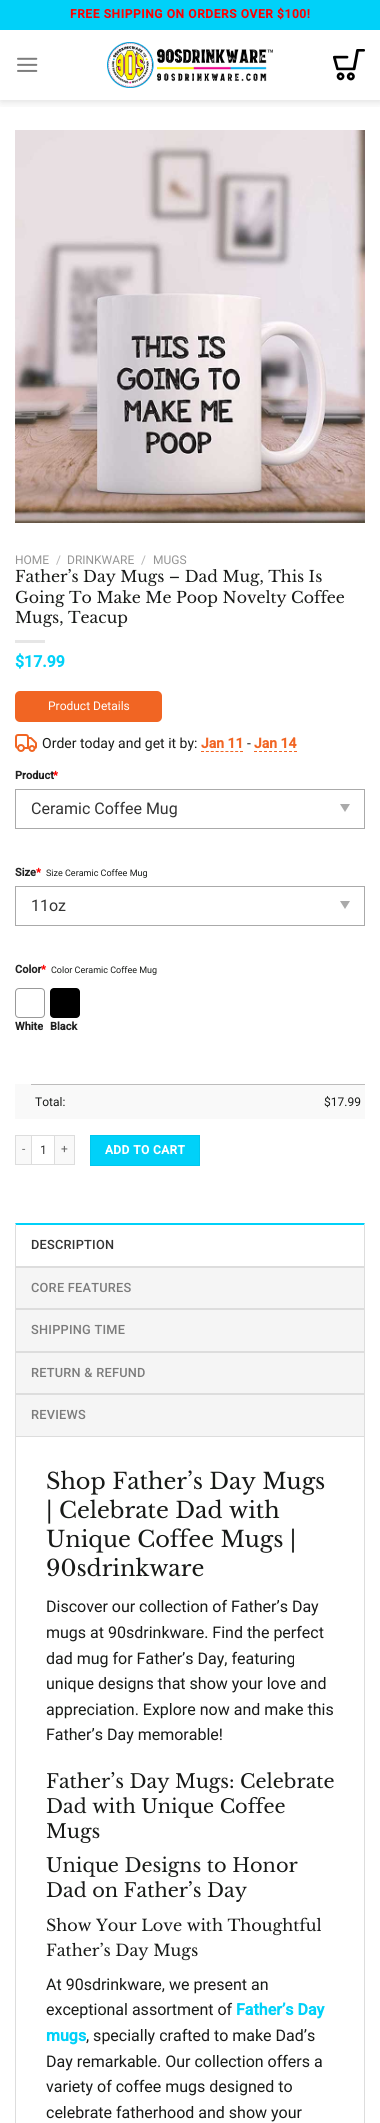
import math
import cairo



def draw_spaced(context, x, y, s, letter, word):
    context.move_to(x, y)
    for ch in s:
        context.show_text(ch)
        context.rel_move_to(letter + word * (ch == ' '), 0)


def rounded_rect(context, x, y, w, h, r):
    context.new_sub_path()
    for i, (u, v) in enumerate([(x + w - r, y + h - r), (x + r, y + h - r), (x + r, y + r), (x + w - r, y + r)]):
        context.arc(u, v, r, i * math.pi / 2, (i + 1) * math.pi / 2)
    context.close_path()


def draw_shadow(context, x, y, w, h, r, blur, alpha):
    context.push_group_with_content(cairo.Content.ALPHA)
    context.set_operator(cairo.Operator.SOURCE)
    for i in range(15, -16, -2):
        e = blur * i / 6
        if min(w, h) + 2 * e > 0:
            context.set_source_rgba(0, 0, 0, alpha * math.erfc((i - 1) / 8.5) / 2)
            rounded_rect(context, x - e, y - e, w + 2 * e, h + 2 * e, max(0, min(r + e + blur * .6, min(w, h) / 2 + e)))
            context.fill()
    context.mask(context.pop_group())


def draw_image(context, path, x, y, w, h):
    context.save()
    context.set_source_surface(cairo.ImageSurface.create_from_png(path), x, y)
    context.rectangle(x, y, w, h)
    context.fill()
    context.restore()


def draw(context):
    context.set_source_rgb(1, 1, 1)
    context.paint()
    context.save()
    context.rectangle(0, 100, 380, 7)
    context.clip()
    context.set_source_rgb(0, 0, 0)
    draw_shadow(context, 1, 1, 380, 100, 0, 5, 0.15)
    context.restore()
    context.set_source_rgb(0, 209 / 255, 249 / 255)
    context.rectangle(0, 0, 380, 30)
    context.fill()
    draw_image(context, "images/1.png", 17, 57, 21, 15)
    draw_image(context, "images/2.png", 107, 42, 166, 46)
    draw_image(context, "images/3.png", 333, 49, 32, 32)
    draw_image(context, "images/4.png", 15, 130, 350, 393)
    context.set_source_rgb(230 / 255, 230 / 255, 230 / 255)
    context.rectangle(15, 640, 30, 3)
    context.fill()
    context.set_source_rgb(241 / 255, 101 / 255, 35 / 255)
    rounded_rect(context, 15, 691, 147, 31, 5)
    context.fill()
    draw_image(context, "images/5.png", 15, 734, 22, 18)
    context.new_path()
    context.move_to(201, 751.5)
    context.line_to(243, 751.5)
    context.set_line_width(1)
    context.set_dash([3, 1.88])
    context.stroke()
    context.new_path()
    context.move_to(254, 751.5)
    context.line_to(297, 751.5)
    context.set_dash([3, 2])
    context.stroke()
    context.rectangle(15.5, 789.5, 349, 39)
    context.set_source_rgb(170 / 255, 170 / 255, 170 / 255)
    context.set_dash([])
    context.stroke()
    context.new_path()
    context.move_to(340, 804)
    context.line_to(350, 804)
    context.line_to(345, 812)
    context.close_path()
    context.fill()
    context.rectangle(15.5, 886.5, 349, 39)
    context.stroke()
    context.new_path()
    context.move_to(340, 901)
    context.line_to(350, 901)
    context.line_to(345, 909)
    context.close_path()
    context.fill()
    rounded_rect(context, 15.5, 988.5, 29, 29, 3.5)
    context.set_source_rgb(153 / 255, 153 / 255, 153 / 255)
    context.stroke()
    context.set_source_rgb(0, 0, 0)
    rounded_rect(context, 50, 988, 30, 30, 4)
    context.fill()
    context.set_source_rgb(249 / 255, 249 / 255, 249 / 255)
    context.rectangle(15, 1084, 350, 35)
    context.fill()
    context.set_source_rgb(189 / 255, 188 / 255, 188 / 255)
    context.rectangle(31, 1084, 334, 1)
    context.fill()
    context.set_source_rgb(249 / 255, 249 / 255, 249 / 255)
    context.rectangle(16, 1136, 15, 28)
    context.fill()
    context.set_source_rgb(221 / 255, 221 / 255, 221 / 255)
    context.rectangle(15, 1135, 16, 1)
    context.fill()
    context.rectangle(15, 1164, 16, 1)
    context.fill()
    context.rectangle(15, 1135, 1, 30)
    context.fill()
    context.rectangle(31.5, 1135.5, 23, 29)
    context.stroke()
    context.set_source_rgb(249 / 255, 249 / 255, 249 / 255)
    context.rectangle(55, 1136, 19, 28)
    context.fill()
    context.set_source_rgb(221 / 255, 221 / 255, 221 / 255)
    context.rectangle(55, 1135, 20, 1)
    context.fill()
    context.rectangle(74, 1135, 1, 30)
    context.fill()
    context.rectangle(55, 1164, 20, 1)
    context.fill()
    context.set_source_rgb(0, 209 / 255, 249 / 255)
    context.rectangle(90.5, 1135.5, 109, 30)
    context.fill_preserve()
    context.set_source_rgb(0, 199 / 255, 237 / 255)
    context.stroke()
    context.set_source_rgb(0, 209 / 255, 249 / 255)
    context.new_path()
    context.move_to(15, 1223)
    context.line_to(365, 1223)
    context.line_to(364, 1225)
    context.line_to(16, 1225)
    context.close_path()
    context.fill()
    context.set_source_rgb(221 / 255, 221 / 255, 221 / 255)
    context.new_path()
    context.move_to(365, 1223)
    context.line_to(365, 1266)
    context.line_to(364, 1266)
    context.line_to(364, 1225)
    context.close_path()
    context.fill()
    context.new_path()
    context.move_to(15, 1266)
    context.line_to(15, 1223)
    context.line_to(16, 1225)
    context.line_to(16, 1266)
    context.close_path()
    context.fill()
    context.set_source_rgb(245 / 255, 245 / 255, 245 / 255)
    context.rectangle(16, 1268, 348, 40)
    context.fill()
    context.set_source_rgb(221 / 255, 221 / 255, 221 / 255)
    context.rectangle(15, 1266, 350, 2)
    context.fill()
    context.rectangle(364, 1266, 1, 42)
    context.fill()
    context.rectangle(15, 1266, 1, 42)
    context.fill()
    context.set_source_rgb(245 / 255, 245 / 255, 245 / 255)
    context.rectangle(16, 1310, 348, 41)
    context.fill()
    context.set_source_rgb(221 / 255, 221 / 255, 221 / 255)
    context.rectangle(15, 1308, 350, 2)
    context.fill()
    context.rectangle(364, 1308, 1, 43)
    context.fill()
    context.rectangle(15, 1308, 1, 43)
    context.fill()
    context.set_source_rgb(245 / 255, 245 / 255, 245 / 255)
    context.rectangle(16, 1353, 348, 40)
    context.fill()
    context.set_source_rgb(221 / 255, 221 / 255, 221 / 255)
    context.rectangle(15, 1351, 350, 2)
    context.fill()
    context.rectangle(364, 1351, 1, 42)
    context.fill()
    context.rectangle(15, 1351, 1, 42)
    context.fill()
    context.set_source_rgb(245 / 255, 245 / 255, 245 / 255)
    context.rectangle(16, 1395, 348, 41)
    context.fill()
    context.set_source_rgb(221 / 255, 221 / 255, 221 / 255)
    context.rectangle(15, 1393, 350, 2)
    context.fill()
    context.rectangle(364, 1393, 1, 43)
    context.fill()
    context.rectangle(15, 1393, 1, 43)
    context.fill()
    context.rectangle(15.5, 1436.5, 349, 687)
    context.stroke()
    context.select_font_face("Roboto", cairo.FontSlant.NORMAL, cairo.FontWeight.BOLD)
    context.set_font_size(12)
    context.set_source_rgb(1, 0, 0)
    draw_spaced(context, 70, 18, "FREE SHIPPING ON ORDERS OVER $100!", 0.6, 0)
    context.select_font_face("Roboto")
    context.set_source_rgb(148 / 255, 148 / 255, 148 / 255)
    context.move_to(15, 564)
    context.show_text("HOME")
    context.set_source_rgb(178 / 255, 178 / 255, 178 / 255)
    context.move_to(56, 564)
    context.show_text("/")
    context.set_source_rgb(148 / 255, 148 / 255, 148 / 255)
    context.move_to(67, 564)
    context.show_text("DRINKWARE")
    context.set_source_rgb(178 / 255, 178 / 255, 178 / 255)
    context.move_to(141, 564)
    context.show_text("/")
    context.set_source_rgb(148 / 255, 148 / 255, 148 / 255)
    context.move_to(153, 564)
    context.show_text("MUGS")
    context.select_font_face("Libre Baskerville")
    context.set_font_size(15.7)
    context.set_source_rgb(24 / 255, 26 / 255, 24 / 255)
    context.move_to(15, 582)
    context.show_text("Father’s Day Mugs – Dad Mug, This Is")
    context.move_to(15, 603)
    context.show_text("Going To Make Me Poop Novelty Coffee")
    context.move_to(15, 623)
    context.show_text("Mugs, Teacup")
    context.select_font_face("Roboto", cairo.FontSlant.NORMAL, cairo.FontWeight.BOLD)
    context.set_font_size(16)
    context.set_source_rgb(0, 209 / 255, 249 / 255)
    context.move_to(15, 667)
    context.show_text("$17.99")
    context.select_font_face("Roboto")
    context.set_font_size(12)
    context.set_source_rgb(1, 1, 1)
    context.move_to(48, 710)
    context.show_text("Product Details")
    context.set_font_size(14)
    context.set_source_rgb(24 / 255, 26 / 255, 24 / 255)
    context.move_to(42, 748)
    context.show_text("Order today and get it by:")
    context.select_font_face("Roboto", cairo.FontSlant.NORMAL, cairo.FontWeight.BOLD)
    context.set_source_rgb(241 / 255, 101 / 255, 35 / 255)
    context.move_to(201, 748)
    context.show_text("Jan 11")
    context.select_font_face("Roboto")
    context.set_source_rgb(24 / 255, 26 / 255, 24 / 255)
    context.move_to(247, 748)
    context.show_text("-")
    context.select_font_face("Roboto", cairo.FontSlant.NORMAL, cairo.FontWeight.BOLD)
    context.set_source_rgb(241 / 255, 101 / 255, 35 / 255)
    context.move_to(254, 748)
    context.show_text("Jan 14")
    context.set_font_size(11)
    context.set_source_rgb(34 / 255, 34 / 255, 34 / 255)
    context.move_to(15, 779)
    context.show_text("Product")
    context.set_source_rgb(1, 0, 0)
    context.move_to(53, 779)
    context.show_text("*")
    context.select_font_face("Roboto")
    context.set_font_size(16)
    context.set_source_rgb(51 / 255, 51 / 255, 51 / 255)
    context.move_to(31, 814)
    context.show_text("Ceramic Coffee Mug")
    context.select_font_face("Roboto", cairo.FontSlant.NORMAL, cairo.FontWeight.BOLD)
    context.set_font_size(11)
    context.set_source_rgb(34 / 255, 34 / 255, 34 / 255)
    context.move_to(15, 876)
    context.show_text("Size")
    context.set_source_rgb(1, 0, 0)
    context.move_to(36, 876)
    context.show_text("*")
    context.select_font_face("Roboto")
    context.set_font_size(9)
    context.set_source_rgb(24 / 255, 26 / 255, 24 / 255)
    context.move_to(46, 876)
    context.show_text("Size Ceramic Coffee Mug")
    context.set_font_size(16)
    context.set_source_rgb(51 / 255, 51 / 255, 51 / 255)
    context.move_to(31, 911)
    context.show_text("11oz")
    context.select_font_face("Roboto", cairo.FontSlant.NORMAL, cairo.FontWeight.BOLD)
    context.set_font_size(11)
    context.set_source_rgb(34 / 255, 34 / 255, 34 / 255)
    context.move_to(15, 973)
    context.show_text("Color")
    context.set_source_rgb(1, 0, 0)
    context.move_to(41, 973)
    context.show_text("*")
    context.select_font_face("Roboto")
    context.set_font_size(9)
    context.set_source_rgb(24 / 255, 26 / 255, 24 / 255)
    context.move_to(51, 973)
    context.show_text("Color Ceramic Coffee Mug")
    context.select_font_face("Roboto", cairo.FontSlant.NORMAL, cairo.FontWeight.BOLD)
    context.set_font_size(11)
    context.set_source_rgb(34 / 255, 34 / 255, 34 / 255)
    context.move_to(15, 1030)
    context.show_text("White")
    context.move_to(50, 1030)
    context.show_text("Black")
    context.select_font_face("Roboto")
    context.set_font_size(12)
    context.set_source_rgb(24 / 255, 26 / 255, 24 / 255)
    context.move_to(35, 1106)
    context.show_text("Total:")
    context.move_to(324, 1106)
    context.show_text("$17.99")
    context.set_source_rgb(102 / 255, 102 / 255, 102 / 255)
    context.move_to(22, 1153)
    context.show_text("-")
    context.set_source_rgb(51 / 255, 51 / 255, 51 / 255)
    context.move_to(40, 1154)
    context.show_text("1")
    context.set_source_rgb(102 / 255, 102 / 255, 102 / 255)
    context.move_to(61, 1153)
    context.show_text("+")
    context.select_font_face("Roboto", cairo.FontSlant.NORMAL, cairo.FontWeight.BOLD)
    context.set_source_rgb(1, 1, 1)
    draw_spaced(context, 105, 1154, "ADD TO CART", 0.4, 0)
    context.select_font_face("Roboto Medium")
    context.set_font_size(12.75)
    context.set_source_rgb(51 / 255, 51 / 255, 51 / 255)
    draw_spaced(context, 31, 1249, "DESCRIPTION", 0.25, 0)
    context.set_source_rgb(123 / 255, 123 / 255, 123 / 255)
    draw_spaced(context, 31, 1292, "CORE FEATURES", 0.25, 0)
    draw_spaced(context, 31, 1334, "SHIPPING TIME", 0.25, 0)
    draw_spaced(context, 31, 1377, "RETURN & REFUND", 0.25, 0)
    draw_spaced(context, 31, 1419, "REVIEWS", 0.25, 0)
    context.select_font_face("Libre Baskerville")
    context.set_font_size(22.4)
    context.set_source_rgb(24 / 255, 26 / 255, 24 / 255)
    context.move_to(46, 1489)
    context.show_text("Shop Father’s Day Mugs")
    context.move_to(46, 1518)
    context.show_text("| Celebrate Dad with")
    context.move_to(46, 1547)
    context.show_text("Unique Coffee Mugs |")
    context.move_to(46, 1576)
    context.show_text("90sdrinkware")
    context.select_font_face("Roboto")
    context.set_font_size(16)
    context.move_to(46, 1612)
    context.show_text("Discover our collection of Father’s Day")
    context.move_to(46, 1638)
    context.show_text("mugs at 90sdrinkware. Find the perfect")
    context.move_to(46, 1664)
    context.show_text("dad mug for Father’s Day, featuring")
    context.move_to(46, 1689)
    context.show_text("unique designs that show your love and")
    context.move_to(46, 1715)
    context.show_text("appreciation. Explore now and make this")
    context.move_to(46, 1740)
    context.show_text("Father’s Day memorable!")
    context.select_font_face("Libre Baskerville")
    context.set_font_size(19.25)
    context.move_to(46, 1788)
    context.show_text("Father’s Day Mugs: Celebrate")
    context.move_to(46, 1813)
    context.show_text("Dad with Unique Coffee")
    context.move_to(46, 1838)
    context.show_text("Mugs")
    context.move_to(46, 1872)
    context.show_text("Unique Designs to Honor")
    context.move_to(46, 1897)
    context.show_text("Dad on Father’s Day")
    context.set_font_size(16)
    context.move_to(46, 1931)
    context.show_text("Show Your Love with Thoughtful")
    context.move_to(46, 1956)
    context.show_text("Father’s Day Mugs")
    context.select_font_face("Roboto")
    context.move_to(46, 1990)
    context.show_text("At 90sdrinkware, we present an")
    context.move_to(46, 2015)
    context.show_text("exceptional assortment of")
    context.select_font_face("Roboto", cairo.FontSlant.NORMAL, cairo.FontWeight.BOLD)
    context.set_source_rgb(0, 209 / 255, 249 / 255)
    context.move_to(236, 2015)
    context.show_text("Father’s Day")
    context.move_to(46, 2041)
    context.show_text("mugs")
    context.select_font_face("Roboto")
    context.set_source_rgb(24 / 255, 26 / 255, 24 / 255)
    context.move_to(86, 2041)
    context.show_text(", specially crafted to make Dad’s")
    context.move_to(46, 2067)
    context.show_text("Day remarkable. Our collection offers a")
    context.move_to(46, 2092)
    context.show_text("variety of coffee mugs designed to")
    context.move_to(46, 2118)
    context.show_text("celebrate fatherhood and show your")


surface = cairo.ImageSurface(cairo.Format.RGB24, 380, 2123)
context = cairo.Context(surface)
options = cairo.FontOptions()
options.set_hint_metrics(cairo.HintMetrics.OFF)
options.set_hint_style(cairo.HintStyle.NONE)
context.set_font_options(options)
context.set_miter_limit(4)
draw(context)
surface.write_to_png("out.png")
